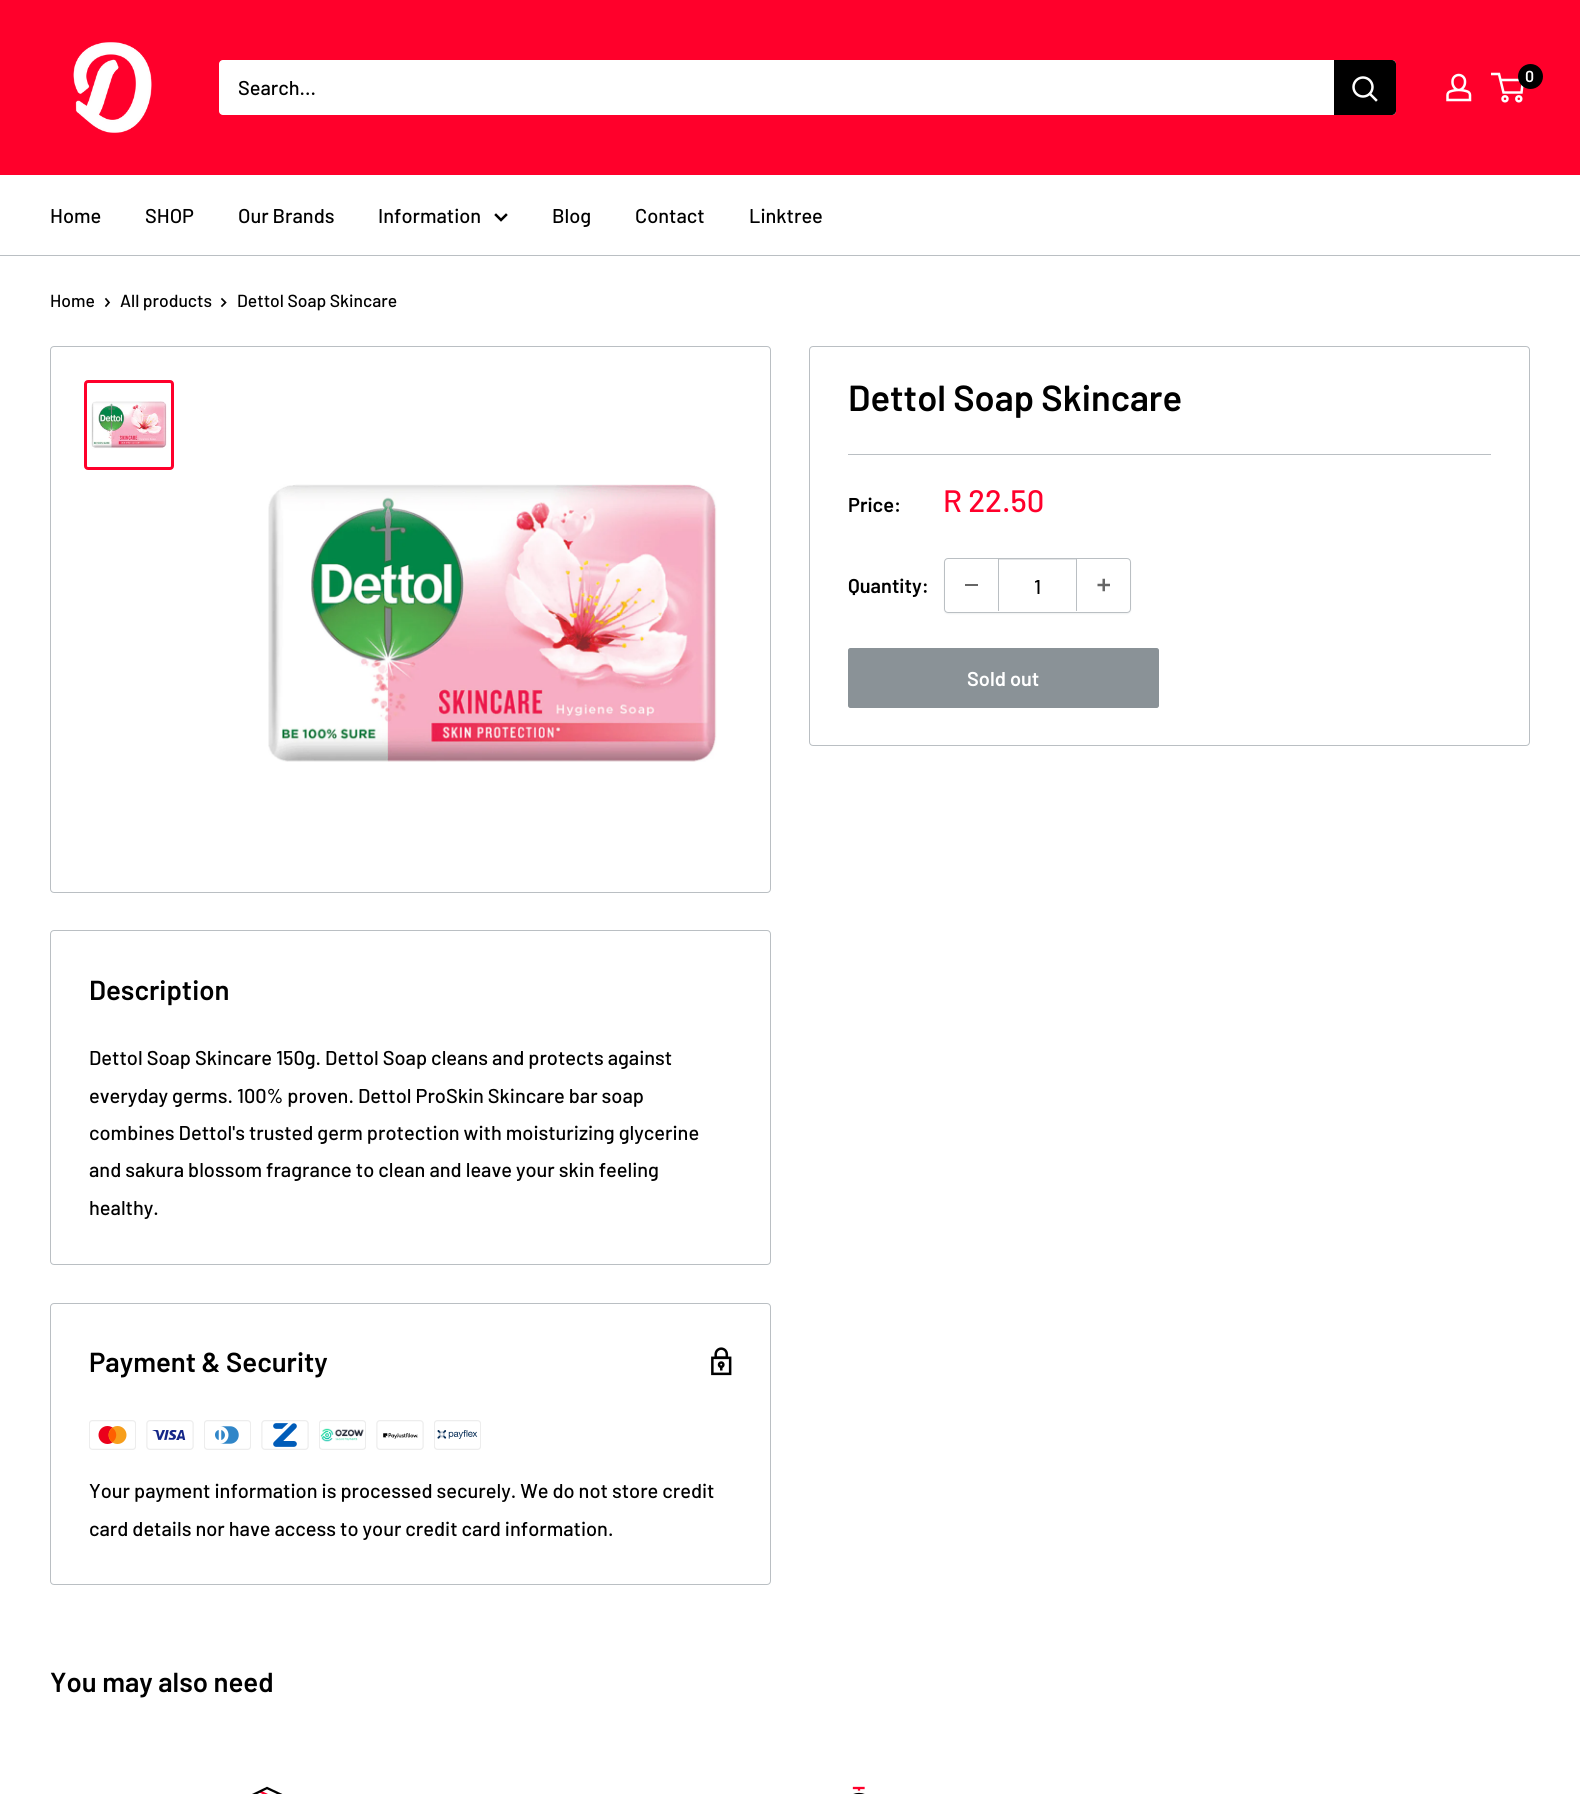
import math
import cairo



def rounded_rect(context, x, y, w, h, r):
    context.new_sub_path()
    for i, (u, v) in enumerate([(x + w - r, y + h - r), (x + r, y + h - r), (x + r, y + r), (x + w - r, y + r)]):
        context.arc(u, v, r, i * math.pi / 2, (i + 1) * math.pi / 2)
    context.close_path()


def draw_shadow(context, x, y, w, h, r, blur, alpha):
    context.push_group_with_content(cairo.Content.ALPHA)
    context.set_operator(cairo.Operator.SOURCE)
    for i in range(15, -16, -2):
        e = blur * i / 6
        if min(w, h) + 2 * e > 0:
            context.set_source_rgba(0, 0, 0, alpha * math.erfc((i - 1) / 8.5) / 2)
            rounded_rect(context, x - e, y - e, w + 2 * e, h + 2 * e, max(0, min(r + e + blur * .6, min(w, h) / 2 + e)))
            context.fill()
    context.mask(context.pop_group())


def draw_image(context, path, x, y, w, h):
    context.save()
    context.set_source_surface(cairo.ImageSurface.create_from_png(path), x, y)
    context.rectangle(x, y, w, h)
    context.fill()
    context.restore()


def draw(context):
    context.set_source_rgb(1, 1, 1)
    context.paint()
    context.set_source_rgb(1, 0, 43 / 255)
    context.rectangle(0, 0, 1580, 175)
    context.fill()
    draw_image(context, "images/1.png", 73, 42, 79, 91)
    draw_image(context, "images/2.png", 1446, 73, 26, 29)
    context.arc(1505, 98.8, 2.5, 0, 2 * math.pi)
    context.set_source_rgb(1, 1, 1)
    context.set_line_width(2.5)
    context.stroke()
    context.arc(1518.8, 98.8, 2.5, 0, 2 * math.pi)
    context.stroke()
    context.new_path()
    context.move_to(1500.5, 80)
    context.line_to(1523, 80)
    context.line_to(1521.5, 92.5)
    context.line_to(1503.5, 92.5)
    context.line_to(1499, 74)
    context.line_to(1491, 74)
    context.stroke()
    context.set_source_rgb(0, 0, 0)
    context.arc(1530.5, 76.5, 12.5, 0, 2 * math.pi)
    context.fill()
    context.set_source_rgb(1, 1, 1)
    rounded_rect(context, 219, 60, 1177, 55, 4)
    context.fill()
    context.set_source_rgb(0, 0, 0)
    context.new_path()
    context.move_to(1334, 60)
    context.line_to(1392, 60)
    context.curve_to(1394, 60, 1396, 62, 1396, 64)
    context.line_to(1396, 111)
    context.curve_to(1396, 113, 1394, 115, 1392, 115)
    context.line_to(1334, 115)
    context.close_path()
    context.fill()
    context.new_path()
    context.move_to(1376, 100)
    context.line_to(1370, 94)
    context.set_source_rgb(1, 1, 1)
    context.set_line_cap(cairo.LineCap.SQUARE)
    context.stroke()
    context.arc(1363, 87, 9.5, 0, 2 * math.pi)
    context.set_line_cap(cairo.LineCap.BUTT)
    context.stroke()
    context.set_source_rgb(186 / 255, 191 / 255, 195 / 255)
    context.rectangle(0, 255, 1580, 1)
    context.fill()
    context.new_path()
    context.move_to(506, 215)
    context.line_to(501, 220)
    context.line_to(496, 215)
    context.set_source_rgb(0, 0, 0)
    context.set_line_cap(cairo.LineCap.SQUARE)
    context.stroke()
    context.new_path()
    context.move_to(106, 299)
    context.line_to(109, 302.5)
    context.line_to(106, 306)
    context.set_line_width(1.7)
    context.stroke()
    context.new_path()
    context.move_to(222, 299)
    context.line_to(225.5, 302.5)
    context.line_to(222, 306)
    context.stroke()
    rounded_rect(context, 50.5, 346.5, 720, 546, 3.5)
    context.set_source_rgb(186 / 255, 191 / 255, 195 / 255)
    context.set_line_width(1)
    context.set_line_cap(cairo.LineCap.BUTT)
    context.stroke()
    rounded_rect(context, 85.5, 381.5, 87, 87, 2.5)
    context.set_source_rgb(1, 0, 43 / 255)
    context.set_line_width(3)
    context.stroke()
    draw_image(context, "images/3.png", 91, 401, 76, 48)
    draw_image(context, "images/4.png", 268, 484, 449, 278)
    rounded_rect(context, 809.5, 346.5, 720, 399, 3.5)
    context.set_source_rgb(186 / 255, 191 / 255, 195 / 255)
    context.set_line_width(1)
    context.stroke()
    context.rectangle(848, 454, 643, 1)
    context.fill()
    context.save()
    context.set_fill_rule(cairo.FillRule.EVEN_ODD)
    context.new_path()
    context.move_to(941, 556)
    context.line_to(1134, 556)
    context.line_to(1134, 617)
    context.line_to(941, 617)
    context.close_path()
    context.move_to(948, 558)
    context.line_to(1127, 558)
    context.curve_to(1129, 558, 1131, 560, 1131, 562)
    context.line_to(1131, 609)
    context.curve_to(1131, 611, 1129, 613, 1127, 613)
    context.line_to(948, 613)
    context.curve_to(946, 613, 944, 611, 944, 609)
    context.line_to(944, 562)
    context.curve_to(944, 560, 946, 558, 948, 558)
    context.close_path()
    context.clip()
    context.set_source_rgb(186 / 255, 191 / 255, 195 / 255)
    draw_shadow(context, 944, 559, 187, 55, 4, 0.5, 0.2)
    context.restore()
    rounded_rect(context, 944.5, 558.5, 186, 54, 3.5)
    context.stroke()
    context.set_source_rgb(102 / 255, 102 / 255, 102 / 255)
    context.rectangle(965, 584, 13, 2)
    context.fill()
    context.set_source_rgb(227 / 255, 229 / 255, 231 / 255)
    context.rectangle(999, 559, 77, 1)
    context.fill()
    context.set_source_rgb(186 / 255, 191 / 255, 195 / 255)
    context.rectangle(1076, 559, 1, 52)
    context.fill()
    context.rectangle(998, 559, 1, 52)
    context.fill()
    draw_image(context, "images/5.png", 1097, 578, 13, 14)
    context.set_source_rgb(138 / 255, 146 / 255, 151 / 255)
    rounded_rect(context, 848.5, 648.5, 310, 59, 2)
    context.fill_preserve()
    context.stroke()
    rounded_rect(context, 50.5, 930.5, 720, 334, 3.5)
    context.set_source_rgb(186 / 255, 191 / 255, 195 / 255)
    context.stroke()
    rounded_rect(context, 50.5, 1303.5, 720, 281, 3.5)
    context.stroke()
    draw_image(context, "images/6.png", 711, 1347, 21, 29)
    draw_image(context, "images/7.png", 89, 1420, 47, 30)
    draw_image(context, "images/8.png", 146, 1420, 48, 30)
    draw_image(context, "images/9.png", 204, 1420, 47, 30)
    draw_image(context, "images/10.png", 261, 1420, 48, 30)
    draw_image(context, "images/11.png", 319, 1420, 47, 30)
    draw_image(context, "images/12.png", 376, 1420, 48, 30)
    draw_image(context, "images/13.png", 434, 1420, 47, 30)
    context.new_path()
    context.move_to(260, 1791.5)
    context.line_to(279, 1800.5)
    context.set_source_rgb(1, 0, 43 / 255)
    context.set_line_width(2.3)
    context.stroke()
    context.new_path()
    context.move_to(286, 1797)
    context.line_to(286, 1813)
    context.line_to(270.5, 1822)
    context.line_to(251.5, 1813)
    context.line_to(251.5, 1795.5)
    context.line_to(267, 1788)
    context.close_path()
    context.set_source_rgb(0, 0, 0)
    context.set_line_cap(cairo.LineCap.SQUARE)
    context.stroke()
    context.new_path()
    context.move_to(854, 1788)
    context.line_to(863.5, 1788)
    context.move_to(859, 1788)
    context.line_to(859, 1789.5)
    context.set_source_rgb(1, 0, 43 / 255)
    context.stroke()
    context.arc(859, 1808, 14, 0, 2 * math.pi)
    context.set_source_rgb(0, 0, 0)
    context.set_line_cap(cairo.LineCap.BUTT)
    context.stroke()
    context.select_font_face("Barlow SemiBold")
    context.set_font_size(16)
    context.set_source_rgb(1, 1, 1)
    context.move_to(1525, 82)
    context.show_text("0")
    context.select_font_face("Barlow Medium")
    context.set_font_size(20)
    context.set_source_rgb(0, 0, 0)
    context.move_to(238, 95)
    context.show_text("Search...")
    context.move_to(50, 223)
    context.show_text("Home")
    context.move_to(145, 223)
    context.show_text("SHOP")
    context.move_to(238, 223)
    context.show_text("Our Brands")
    context.move_to(378, 223)
    context.show_text("Information")
    context.move_to(552, 223)
    context.show_text("Blog")
    context.move_to(635, 223)
    context.show_text("Contact")
    context.move_to(749, 223)
    context.show_text("Linktree")
    context.set_font_size(17.5)
    context.move_to(50, 307)
    context.show_text("Home")
    context.move_to(120, 307)
    context.show_text("All products")
    context.move_to(237, 307)
    context.show_text("Dettol Soap Skincare")
    context.select_font_face("Barlow SemiBold")
    context.set_font_size(36.25)
    context.move_to(848, 411)
    context.show_text("Dettol Soap Skincare")
    context.set_font_size(20)
    context.move_to(848, 512)
    context.show_text("Price:")
    context.select_font_face("Barlow Medium")
    context.set_font_size(31)
    context.set_source_rgb(1, 0, 43 / 255)
    context.move_to(943, 512)
    context.show_text("R 22.50")
    context.select_font_face("Barlow SemiBold")
    context.set_font_size(20)
    context.set_source_rgb(0, 0, 0)
    context.move_to(848, 593)
    context.show_text("Quantity:")
    context.select_font_face("Barlow Medium")
    context.move_to(1034, 594)
    context.show_text("1")
    context.select_font_face("Barlow SemiBold")
    context.set_source_rgb(1, 1, 1)
    context.move_to(967, 686)
    context.show_text("Sold out")
    context.set_font_size(27.5)
    context.set_source_rgb(0, 0, 0)
    context.move_to(89, 1000)
    context.show_text("Description")
    context.select_font_face("Barlow Medium")
    context.set_font_size(20)
    context.move_to(89, 1065)
    context.show_text("Dettol Soap Skincare 150g. Dettol Soap cleans and protects against")
    context.move_to(89, 1103)
    context.show_text("everyday germs. 100% proven. Dettol ProSkin Skincare bar soap")
    context.move_to(89, 1140)
    context.show_text("combines Dettol's trusted germ protection with moisturizing glycerine")
    context.move_to(89, 1177)
    context.show_text("and sakura blossom fragrance to clean and leave your skin feeling")
    context.move_to(89, 1215)
    context.show_text("healthy.")
    context.select_font_face("Barlow SemiBold")
    context.set_font_size(27.5)
    context.move_to(89, 1372)
    context.show_text("Payment & Security")
    context.select_font_face("Barlow Medium")
    context.set_font_size(20)
    context.move_to(89, 1498)
    context.show_text("Your payment information is processed securely. We do not store credit")
    context.move_to(89, 1536)
    context.show_text("card details nor have access to your credit card information.")
    context.select_font_face("Barlow SemiBold")
    context.set_font_size(27.5)
    context.move_to(50, 1692)
    context.show_text("You may also need")


surface = cairo.ImageSurface(cairo.Format.RGB24, 1580, 1794)
context = cairo.Context(surface)
options = cairo.FontOptions()
options.set_hint_metrics(cairo.HintMetrics.OFF)
options.set_hint_style(cairo.HintStyle.NONE)
context.set_font_options(options)
context.set_miter_limit(4)
draw(context)
surface.write_to_png("out.png")
